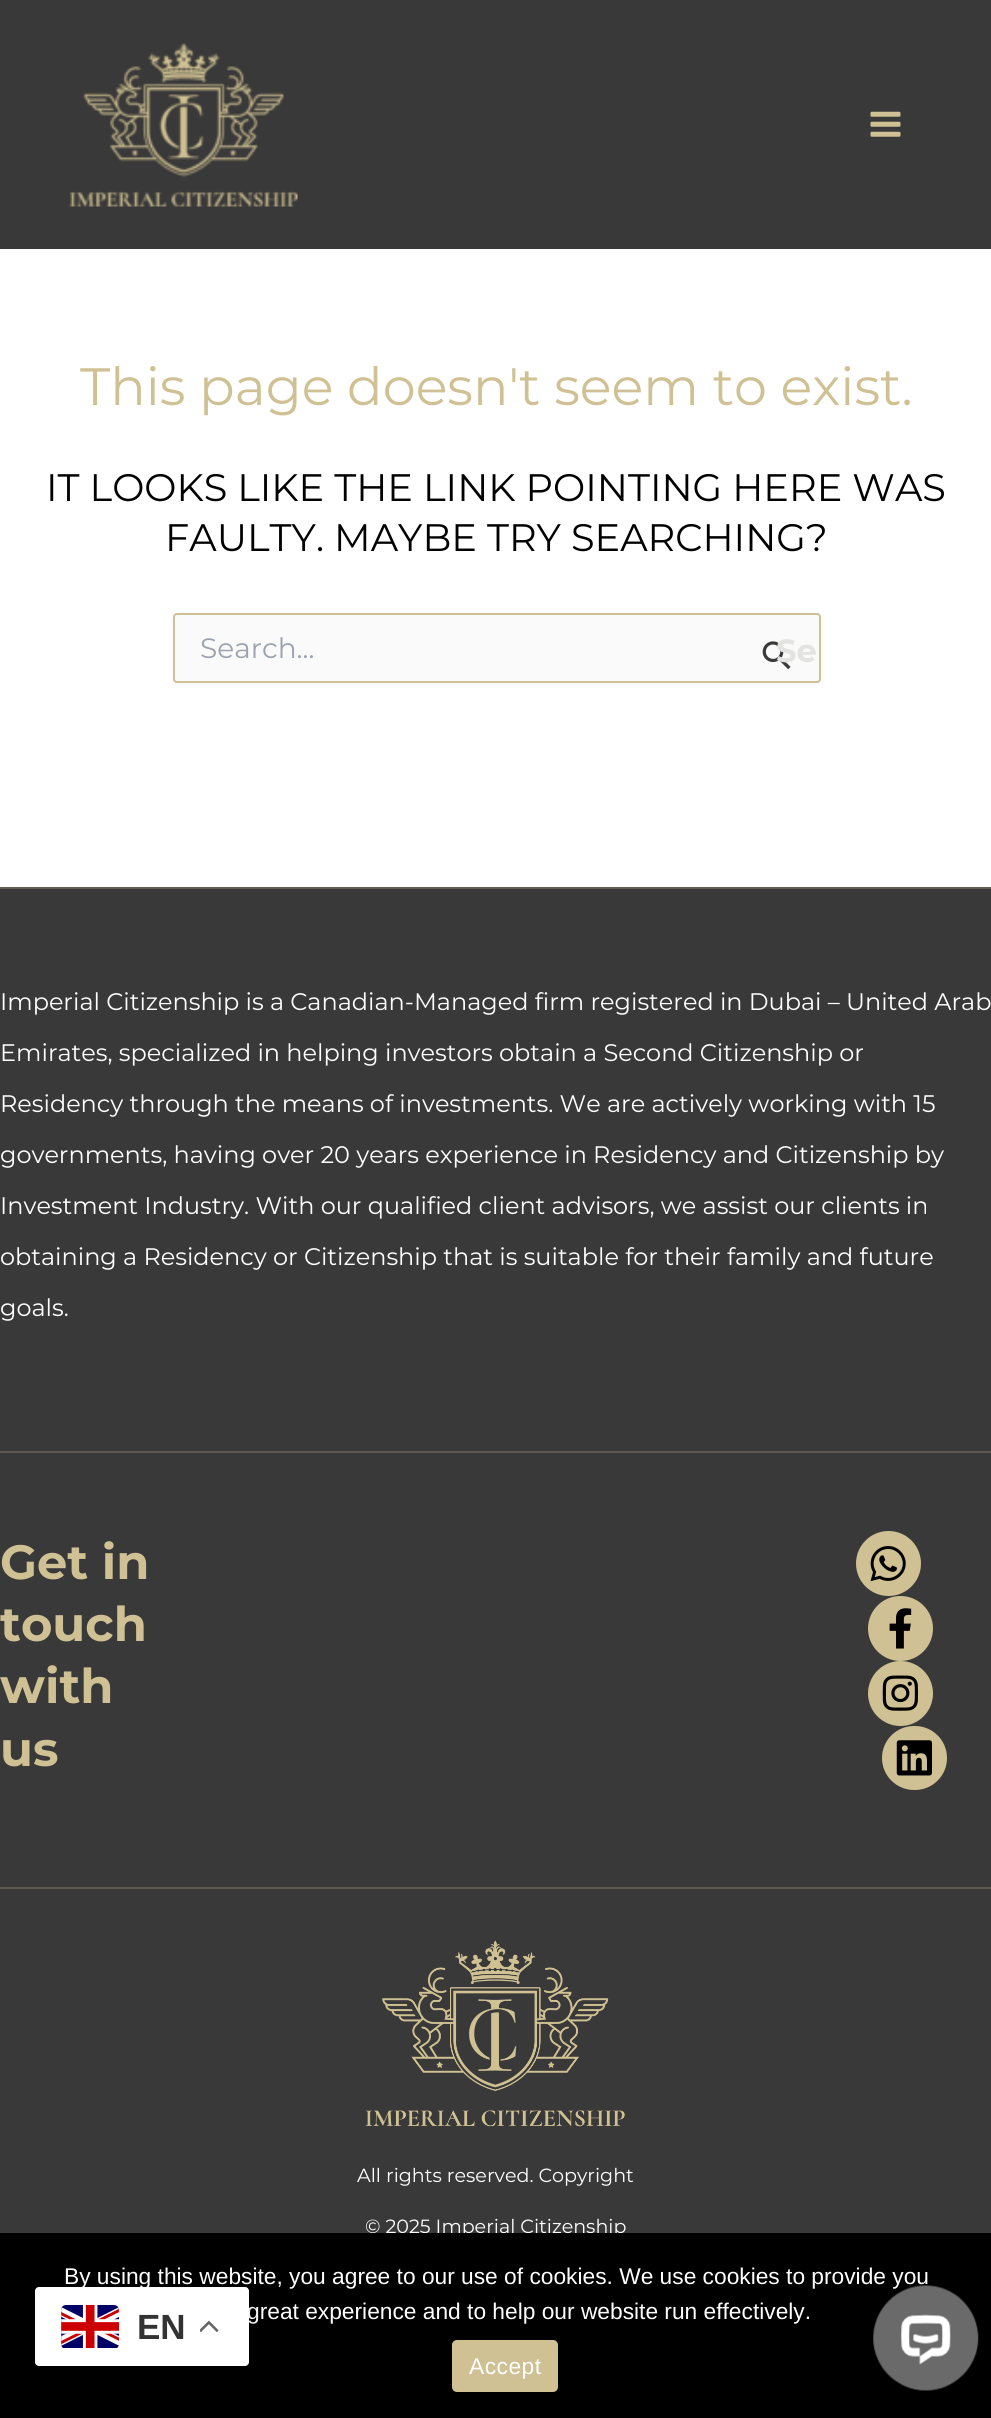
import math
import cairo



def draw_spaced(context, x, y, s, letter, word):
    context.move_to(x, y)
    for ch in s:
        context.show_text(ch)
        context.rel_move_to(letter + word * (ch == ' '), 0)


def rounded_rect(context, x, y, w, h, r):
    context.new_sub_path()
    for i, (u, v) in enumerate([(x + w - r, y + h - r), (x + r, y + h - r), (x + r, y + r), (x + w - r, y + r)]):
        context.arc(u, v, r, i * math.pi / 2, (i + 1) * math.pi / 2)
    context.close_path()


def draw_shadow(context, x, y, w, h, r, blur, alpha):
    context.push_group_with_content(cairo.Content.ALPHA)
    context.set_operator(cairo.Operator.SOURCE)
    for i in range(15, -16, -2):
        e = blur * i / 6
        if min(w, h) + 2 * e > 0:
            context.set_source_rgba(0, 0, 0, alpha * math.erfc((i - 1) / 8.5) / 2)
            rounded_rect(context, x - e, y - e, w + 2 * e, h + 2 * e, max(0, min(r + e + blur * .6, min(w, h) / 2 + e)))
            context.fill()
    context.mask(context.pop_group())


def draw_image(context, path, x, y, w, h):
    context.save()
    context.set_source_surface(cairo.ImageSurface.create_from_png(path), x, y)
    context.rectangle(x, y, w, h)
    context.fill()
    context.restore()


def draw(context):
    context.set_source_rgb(1, 1, 1)
    context.paint()
    context.set_source_rgb(57 / 255, 57 / 255, 57 / 255)
    context.rectangle(0, 0, 991, 249)
    context.fill()
    draw_image(context, "images/1.png", 70, 43, 228, 164)
    draw_image(context, "images/2.png", 870, 111, 31, 26)
    context.set_source_rgb(0, 0, 0)
    draw_shadow(context, 173, 614, 648, 70, 4, 2, 0.05)
    context.set_source_rgb(250 / 255, 250 / 255, 250 / 255)
    rounded_rect(context, 174, 614, 646, 68, 3)
    context.fill_preserve()
    context.set_source_rgb(207 / 255, 193 / 255, 148 / 255)
    context.stroke()
    draw_image(context, "images/3.png", 762, 641, 29, 29)
    context.set_source_rgb(57 / 255, 57 / 255, 57 / 255)
    context.rectangle(0, 889, 991, 562)
    context.fill()
    context.set_source_rgb(98 / 255, 94 / 255, 81 / 255)
    context.rectangle(0, 887, 991, 2)
    context.fill()
    context.set_source_rgb(57 / 255, 57 / 255, 57 / 255)
    context.rectangle(0, 1453, 991, 434)
    context.fill()
    context.set_source_rgb(92 / 255, 88 / 255, 78 / 255)
    context.rectangle(0, 1451, 991, 2)
    context.fill()
    context.set_source_rgb(207 / 255, 193 / 255, 148 / 255)
    context.arc(888.5, 1563.5, 32.5, 0, 2 * math.pi)
    context.fill()
    draw_image(context, "images/4.png", 870, 1546, 36, 36)
    context.arc(900.5, 1628.5, 32.5, 0, 2 * math.pi)
    context.fill()
    draw_image(context, "images/5.png", 889, 1608, 23, 41)
    context.arc(900.5, 1693.5, 32.5, 0, 2 * math.pi)
    context.fill()
    draw_image(context, "images/6.png", 882, 1675, 36, 36)
    rounded_rect(context, 882, 1726, 65, 64, 32)
    context.fill()
    draw_image(context, "images/7.png", 896, 1740, 36, 36)
    context.set_source_rgb(57 / 255, 57 / 255, 57 / 255)
    context.rectangle(0, 1889, 991, 344)
    context.fill()
    context.set_source_rgb(92 / 255, 88 / 255, 78 / 255)
    context.rectangle(0, 1887, 991, 2)
    context.fill()
    draw_image(context, "images/8.png", 365, 1940, 260, 187)
    context.select_font_face("Montserrat")
    context.set_font_size(52.5)
    context.set_source_rgb(207 / 255, 193 / 255, 148 / 255)
    context.move_to(80, 405)
    context.show_text("This page doesn't seem to exist.")
    context.set_font_size(38.3)
    context.set_source_rgb(0, 0, 0)
    context.move_to(46, 501)
    context.show_text("IT LOOKS LIKE THE LINK POINTING HERE WAS")
    context.move_to(165, 551)
    context.show_text("FAULTY. MAYBE TRY SEARCHING?")
    context.set_font_size(28)
    context.set_source_rgb(156 / 255, 163 / 255, 175 / 255)
    context.move_to(200, 658)
    context.show_text("Search...")
    context.select_font_face("Montserrat", cairo.FontSlant.NORMAL, cairo.FontWeight.BOLD)
    context.set_font_size(32)
    context.set_source_rgb(227 / 255, 227 / 255, 225 / 255)
    context.move_to(776, 662)
    context.show_text("Se")
    context.select_font_face("Montserrat")
    context.set_font_size(23.95)
    context.set_source_rgb(1, 1, 1)
    context.move_to(0, 1010)
    context.show_text("Imperial Citizenship is a Canadian-Managed firm registered in Dubai – United Arab")
    context.move_to(0, 1061)
    context.show_text("Emirates, specialized in helping investors obtain a Second Citizenship or")
    context.move_to(0, 1112)
    context.show_text("Residency through the means of investments. We are actively working with 15")
    context.move_to(0, 1163)
    context.show_text("governments, having over 20 years experience in Residency and Citizenship by")
    context.move_to(0, 1214)
    context.show_text("Investment Industry. With our qualified client advisors, we assist our clients in")
    context.move_to(0, 1265)
    context.show_text("obtaining a Residency or Citizenship that is suitable for their family and future")
    context.move_to(0, 1316)
    context.show_text("goals.")
    context.select_font_face("Montserrat", cairo.FontSlant.NORMAL, cairo.FontWeight.BOLD)
    context.set_font_size(48)
    context.set_source_rgb(207 / 255, 193 / 255, 148 / 255)
    context.move_to(0, 1579)
    context.show_text("Get in")
    context.move_to(0, 1641)
    context.show_text("touch")
    context.move_to(0, 1703)
    context.show_text("with")
    context.move_to(0, 1766)
    context.show_text("us")
    context.select_font_face("Montserrat")
    context.set_font_size(19.1)
    context.set_source_rgb(1, 1, 1)
    context.move_to(357, 2182)
    context.show_text("All rights reserved. Copyright")
    context.move_to(365, 2233)
    context.show_text("© 2025 Imperial Citizenship")
    context.set_source_rgb(0, 0, 0)
    context.rectangle(0, 2233, 991, 185)
    context.fill()
    context.select_font_face("Liberation Sans")
    context.set_font_size(22.75)
    context.set_source_rgb(1, 1, 1)
    context.move_to(64, 2284)
    context.show_text("By using this website, you agree to our use of cookies. We use cookies to provide you")
    context.move_to(247, 2319)
    context.show_text("great experience and to help our website run effectively.")
    context.set_source_rgb(207 / 255, 193 / 255, 148 / 255)
    rounded_rect(context, 452, 2340, 106, 52, 5)
    context.fill()
    context.set_source_rgb(1, 1, 1)
    draw_spaced(context, 469, 2374, "Accept", 0.5, 0)
    context.set_source_rgb(0, 0, 0)
    draw_shadow(context, 35, 2296, 214, 79, 4, 13, 0.15)
    context.set_source_rgb(1, 1, 1)
    rounded_rect(context, 35, 2287, 214, 79, 4)
    context.fill()
    draw_image(context, "images/9.png", 61, 2305, 58, 44)
    context.select_font_face("Liberation Sans", cairo.FontSlant.NORMAL, cairo.FontWeight.BOLD)
    context.set_font_size(35)
    context.set_source_rgb(51 / 255, 51 / 255, 51 / 255)
    context.move_to(137, 2339)
    context.show_text("EN")
    draw_image(context, "images/10.png", 200, 2320, 19, 12)
    draw_image(context, "images/11.png", 873, 2285, 106, 106)


surface = cairo.ImageSurface(cairo.Format.RGB24, 991, 2418)
context = cairo.Context(surface)
options = cairo.FontOptions()
options.set_hint_metrics(cairo.HintMetrics.OFF)
options.set_hint_style(cairo.HintStyle.NONE)
context.set_font_options(options)
context.set_miter_limit(4)
draw(context)
surface.write_to_png("out.png")
